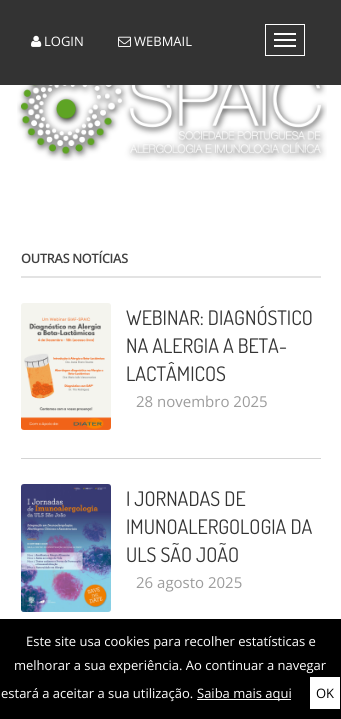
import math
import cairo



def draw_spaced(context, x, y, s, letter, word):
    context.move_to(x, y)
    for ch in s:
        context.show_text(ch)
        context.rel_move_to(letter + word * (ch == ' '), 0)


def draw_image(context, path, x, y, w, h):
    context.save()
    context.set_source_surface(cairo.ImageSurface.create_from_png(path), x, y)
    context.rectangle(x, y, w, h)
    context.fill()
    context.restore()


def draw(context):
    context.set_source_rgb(1, 1, 1)
    context.paint()
    context.set_source_rgb(51 / 255, 51 / 255, 51 / 255)
    context.rectangle(0, 0, 341, 85)
    context.fill()
    draw_image(context, "images/1.png", 31, 35, 11, 12)
    draw_image(context, "images/2.png", 118, 36, 13, 11)
    context.rectangle(265.5, 24.5, 39, 31)
    context.set_source_rgb(1, 1, 1)
    context.set_line_width(1)
    context.stroke()
    context.rectangle(274, 33, 22, 2)
    context.fill()
    context.rectangle(274, 39, 22, 2)
    context.fill()
    context.rectangle(274, 45, 22, 2)
    context.fill()
    draw_image(context, "images/3.png", 17, 85, 310, 76)
    context.set_source_rgb(227 / 255, 227 / 255, 227 / 255)
    context.rectangle(21, 276, 300, 2)
    context.fill()
    context.set_source_rgb(212 / 255, 212 / 255, 212 / 255)
    context.rectangle(21, 458, 300, 1)
    context.fill()
    draw_image(context, "images/4.png", 21, 303, 90, 127)
    draw_image(context, "images/5.png", 21, 484, 90, 128)
    context.set_source_rgb(0, 0, 0)
    context.rectangle(0, 619, 341, 100)
    context.fill()
    context.set_source_rgb(1, 1, 1)
    context.rectangle(197, 699, 94, 1)
    context.fill()
    context.rectangle(310, 677, 30, 32)
    context.fill()
    context.select_font_face("Open Sans")
    context.set_font_size(13)
    context.move_to(44, 46)
    context.show_text("LOGIN")
    context.move_to(134, 46)
    context.show_text("WEBMAIL")
    context.select_font_face("Open Sans SemiBold")
    context.set_source_rgb(64 / 255, 64 / 255, 64 / 255)
    draw_spaced(context, 21, 263, "OUTRAS NOTÍCIAS", -0.5, 0)
    context.select_font_face("Dosis")
    context.set_font_size(20)
    context.set_source_rgb(51 / 255, 51 / 255, 51 / 255)
    context.move_to(126, 325)
    context.show_text("WEBINAR: DIAGNÓSTICO")
    context.move_to(126, 353)
    context.show_text("NA ALERGIA A BETA-")
    context.move_to(126, 381)
    context.show_text("LACTÂMICOS")
    context.select_font_face("Open Sans")
    context.set_font_size(15)
    context.set_source_rgb(156 / 255, 156 / 255, 156 / 255)
    context.move_to(136, 407)
    context.show_text("28 novembro 2025")
    context.select_font_face("Dosis")
    context.set_font_size(20)
    context.set_source_rgb(51 / 255, 51 / 255, 51 / 255)
    context.move_to(126, 506)
    context.show_text("I JORNADAS DE")
    context.move_to(126, 534)
    context.show_text("IMUNOALERGOLOGIA DA")
    context.move_to(126, 562)
    context.show_text("ULS SÃO JOÃO")
    context.select_font_face("Open Sans")
    context.set_font_size(15)
    context.set_source_rgb(156 / 255, 156 / 255, 156 / 255)
    context.move_to(136, 588)
    context.show_text("26 agosto 2025")
    context.set_font_size(13)
    context.set_source_rgb(1, 1, 1)
    context.move_to(26, 646)
    context.show_text("Este site usa cookies para recolher estatísticas e")
    context.move_to(14, 670)
    context.show_text("melhorar a sua experiência. Ao continuar a navegar")
    context.move_to(1, 698)
    context.show_text("estará a aceitar a sua utilização.")
    context.move_to(197, 698)
    context.show_text("Saiba mais aqui")
    context.set_source_rgb(0, 0, 0)
    context.move_to(316, 698)
    context.show_text("OK")


surface = cairo.ImageSurface(cairo.Format.RGB24, 341, 719)
context = cairo.Context(surface)
options = cairo.FontOptions()
options.set_hint_metrics(cairo.HintMetrics.OFF)
options.set_hint_style(cairo.HintStyle.NONE)
context.set_font_options(options)
context.set_miter_limit(4)
draw(context)
surface.write_to_png("out.png")
